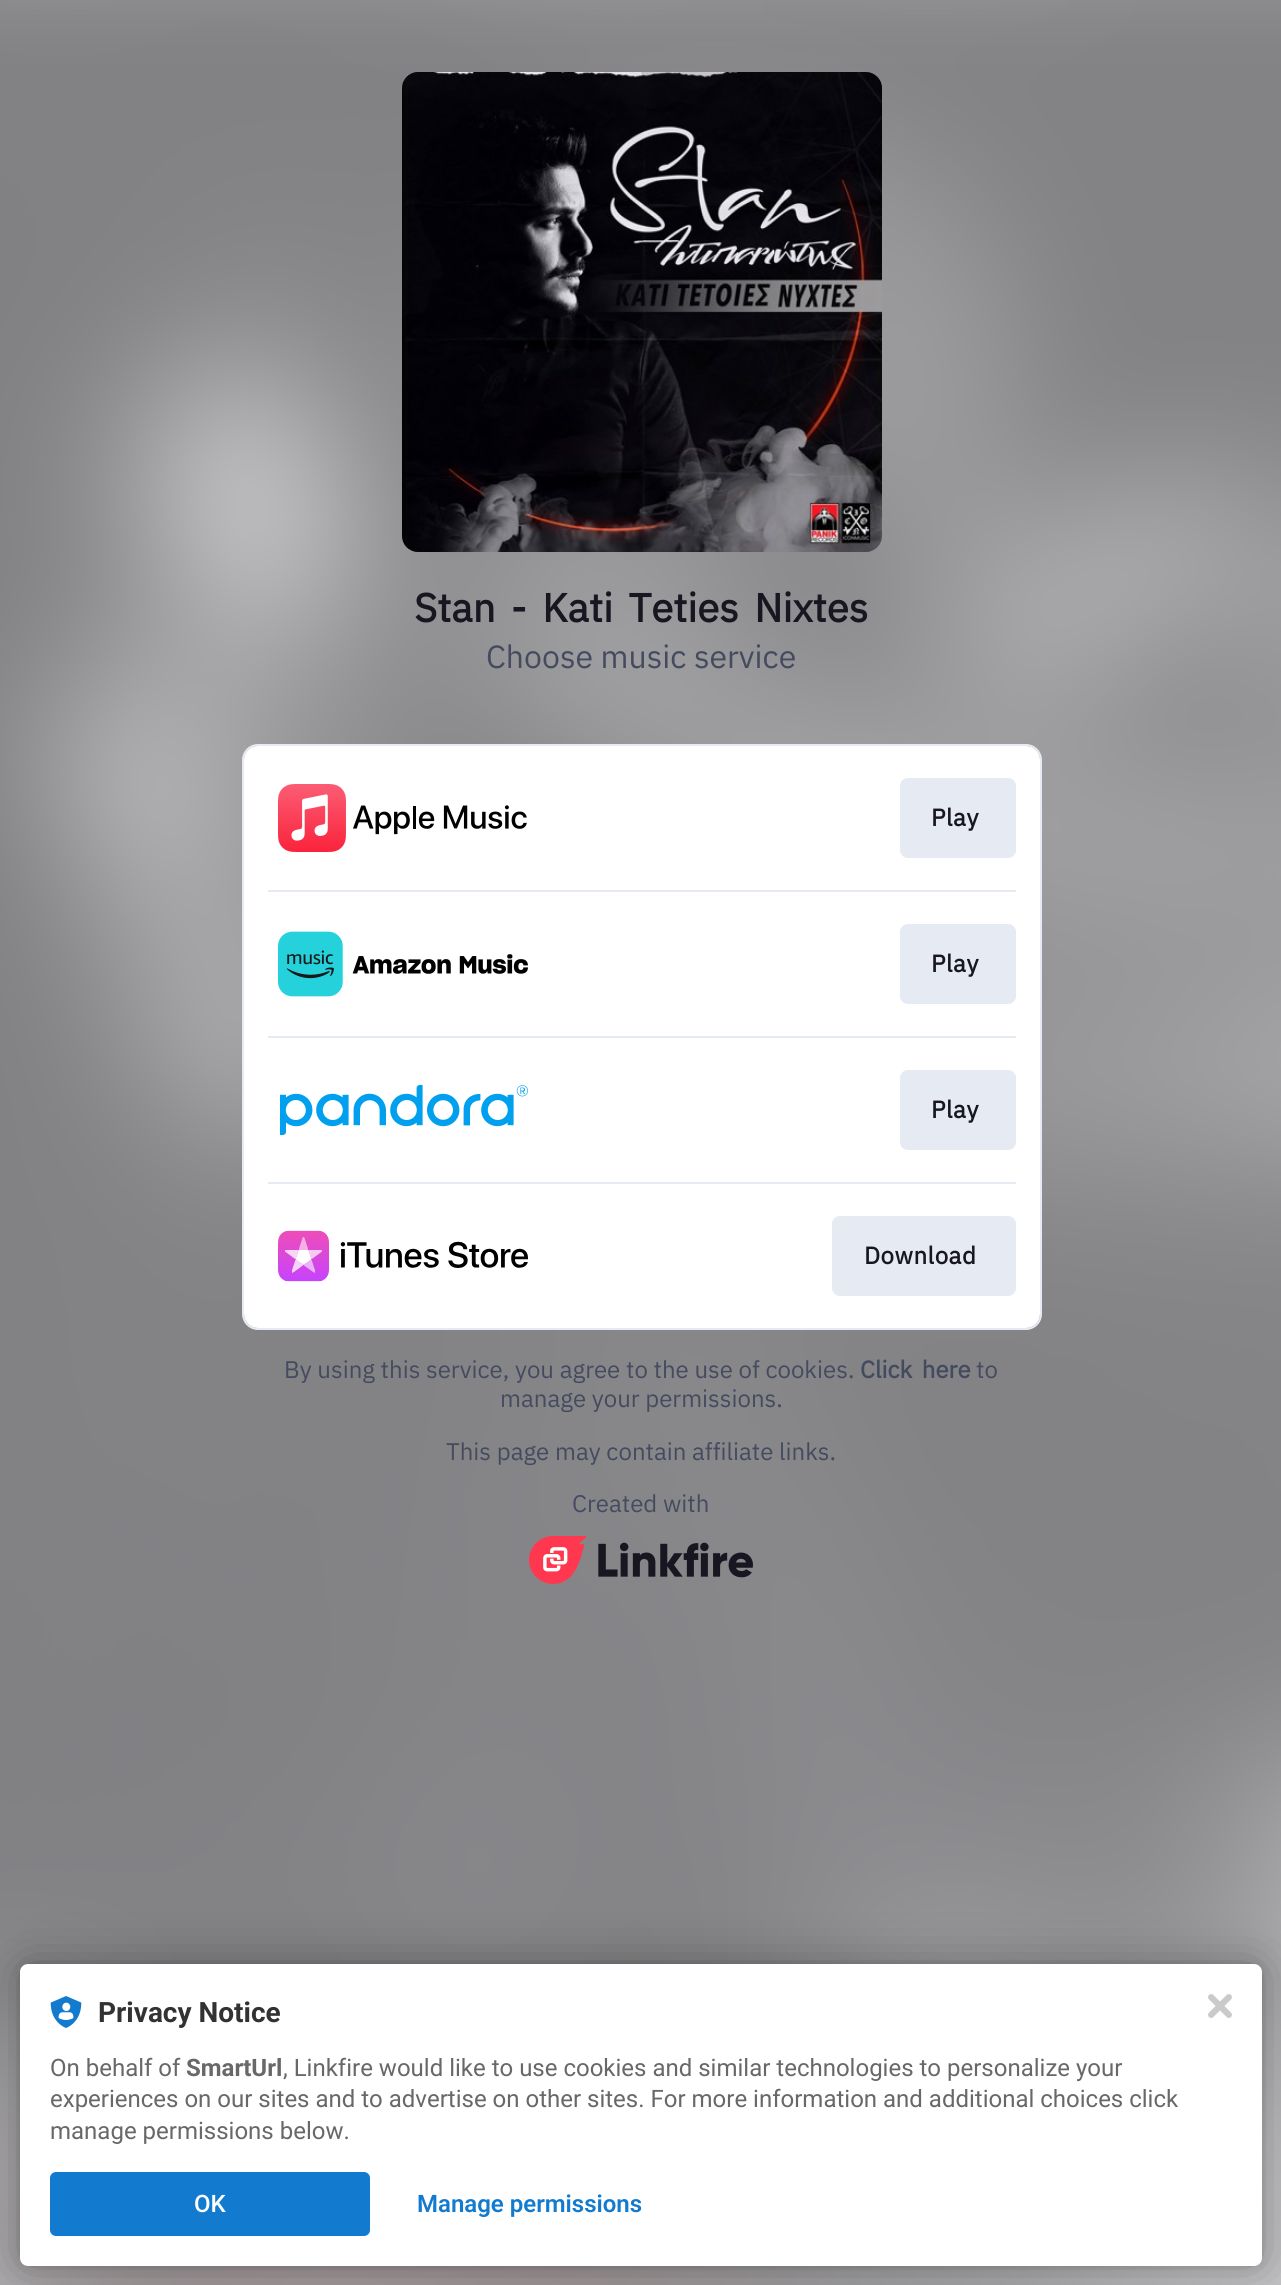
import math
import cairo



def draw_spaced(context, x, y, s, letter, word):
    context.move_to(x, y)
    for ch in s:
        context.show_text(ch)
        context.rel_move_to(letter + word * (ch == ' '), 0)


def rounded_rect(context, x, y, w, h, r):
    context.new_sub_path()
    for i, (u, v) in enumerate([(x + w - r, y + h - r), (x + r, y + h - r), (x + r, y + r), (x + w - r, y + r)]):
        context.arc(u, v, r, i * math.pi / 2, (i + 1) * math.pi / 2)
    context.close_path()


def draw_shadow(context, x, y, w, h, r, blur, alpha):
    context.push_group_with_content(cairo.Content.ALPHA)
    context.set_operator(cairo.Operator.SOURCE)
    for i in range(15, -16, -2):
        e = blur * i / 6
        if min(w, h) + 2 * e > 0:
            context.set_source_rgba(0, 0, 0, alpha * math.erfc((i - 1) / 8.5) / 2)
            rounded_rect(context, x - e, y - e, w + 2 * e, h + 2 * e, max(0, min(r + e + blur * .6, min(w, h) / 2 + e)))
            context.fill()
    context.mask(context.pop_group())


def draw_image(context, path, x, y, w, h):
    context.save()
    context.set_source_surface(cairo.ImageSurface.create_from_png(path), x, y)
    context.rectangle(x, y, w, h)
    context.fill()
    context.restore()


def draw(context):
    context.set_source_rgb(1, 1, 1)
    context.paint()
    draw_image(context, "images/1.png", 0, 0, 1281, 2285)
    draw_image(context, "images/2.png", 402, 72, 480, 480)
    rounded_rect(context, 243, 745, 798, 584, 15)
    context.set_source_rgb(230 / 255, 234 / 255, 242 / 255)
    context.stroke()
    context.set_source_rgb(1, 1, 1)
    rounded_rect(context, 244, 746, 796, 582, 14)
    context.fill()
    draw_image(context, "images/3.png", 278, 784, 249, 68)
    context.set_source_rgb(230 / 255, 234 / 255, 242 / 255)
    rounded_rect(context, 900, 778, 116, 80, 8)
    context.fill()
    context.rectangle(268, 890, 748, 2)
    context.fill()
    draw_image(context, "images/4.png", 278, 931, 250, 66)
    rounded_rect(context, 900, 924, 116, 80, 8)
    context.fill()
    context.rectangle(268, 1036, 748, 2)
    context.fill()
    draw_image(context, "images/5.png", 280, 1085, 248, 50)
    rounded_rect(context, 900, 1070, 116, 80, 8)
    context.fill()
    context.rectangle(268, 1182, 748, 2)
    context.fill()
    draw_image(context, "images/6.png", 278, 1230, 250, 52)
    rounded_rect(context, 832, 1216, 184, 80, 8)
    context.fill()
    draw_image(context, "images/7.png", 529, 1536, 224, 48)
    context.set_source_rgb(0, 0, 0)
    draw_shadow(context, 20, 1964, 1242, 302, 8, 4, 0.12)
    draw_shadow(context, 20, 1964, 1242, 302, 8, 24, 0.3)
    context.set_source_rgb(1, 1, 1)
    rounded_rect(context, 20, 1964, 1242, 302, 8)
    context.fill()
    draw_image(context, "images/8.png", 50, 1996, 32, 32)
    context.set_source_rgb(19 / 255, 123 / 255, 207 / 255)
    rounded_rect(context, 50, 2172, 320, 64, 6)
    context.fill()
    draw_image(context, "images/9.png", 1208, 1994, 24, 24)
    context.select_font_face("IBM Plex Sans", cairo.FontSlant.NORMAL, cairo.FontWeight.BOLD)
    context.set_font_size(40)
    context.set_source_rgb(24 / 255, 23 / 255, 33 / 255)
    draw_spaced(context, 414, 622, "Stan - Kati Teties Nixtes", 0, 6)
    context.select_font_face("IBM Plex Sans")
    context.set_font_size(32)
    context.set_source_rgb(69 / 255, 75 / 255, 95 / 255)
    context.move_to(486, 668)
    context.show_text("Choose music service")
    context.select_font_face("IBM Plex Sans", cairo.FontSlant.NORMAL, cairo.FontWeight.BOLD)
    context.set_font_size(24)
    context.set_source_rgb(24 / 255, 23 / 255, 33 / 255)
    draw_spaced(context, 931, 826, "Play", 0.5, 0)
    draw_spaced(context, 931, 972, "Play", 0.5, 0)
    draw_spaced(context, 931, 1118, "Play", 0.5, 0)
    draw_spaced(context, 864, 1264, "Download", 0.5, 0)
    context.select_font_face("IBM Plex Sans")
    context.set_source_rgb(69 / 255, 75 / 255, 95 / 255)
    context.move_to(284, 1378)
    context.show_text("By using this service, you agree to the use of cookies.")
    context.select_font_face("IBM Plex Sans", cairo.FontSlant.NORMAL, cairo.FontWeight.BOLD)
    draw_spaced(context, 860, 1378, "Click here", 0, 4)
    context.select_font_face("IBM Plex Sans")
    context.move_to(976, 1378)
    context.show_text("to")
    context.move_to(500, 1407)
    context.show_text("manage your permissions.")
    context.move_to(446, 1460)
    context.show_text("This page may contain affiliate links.")
    context.move_to(572, 1512)
    context.show_text("Created with")
    context.select_font_face("Roboto", cairo.FontSlant.NORMAL, cairo.FontWeight.BOLD)
    context.set_font_size(28)
    context.set_source_rgb(50 / 255, 50 / 255, 50 / 255)
    context.move_to(98, 2022)
    context.show_text("Privacy Notice")
    context.select_font_face("Roboto")
    context.set_font_size(24)
    context.set_source_rgb(104 / 255, 104 / 255, 104 / 255)
    context.move_to(50, 2076)
    context.show_text("On behalf of")
    context.select_font_face("Roboto", cairo.FontSlant.NORMAL, cairo.FontWeight.BOLD)
    context.move_to(186, 2076)
    context.show_text("SmartUrl")
    context.select_font_face("Roboto")
    context.move_to(283, 2076)
    context.show_text(", Linkfire would like to use cookies and similar technologies to personalize your")
    context.move_to(50, 2107)
    context.show_text("experiences on our sites and to advertise on other sites. For more information and additional choices click")
    context.move_to(50, 2139)
    context.show_text("manage permissions below.")
    context.select_font_face("Roboto Medium")
    context.set_source_rgb(1, 1, 1)
    context.move_to(194, 2212)
    context.show_text("OK")
    context.select_font_face("Roboto SemiBold")
    context.set_source_rgb(19 / 255, 123 / 255, 207 / 255)
    context.move_to(417, 2212)
    context.show_text("Manage permissions")


surface = cairo.ImageSurface(cairo.Format.RGB24, 1281, 2285)
context = cairo.Context(surface)
options = cairo.FontOptions()
options.set_hint_metrics(cairo.HintMetrics.OFF)
options.set_hint_style(cairo.HintStyle.NONE)
context.set_font_options(options)
context.set_miter_limit(4)
draw(context)
surface.write_to_png("out.png")
